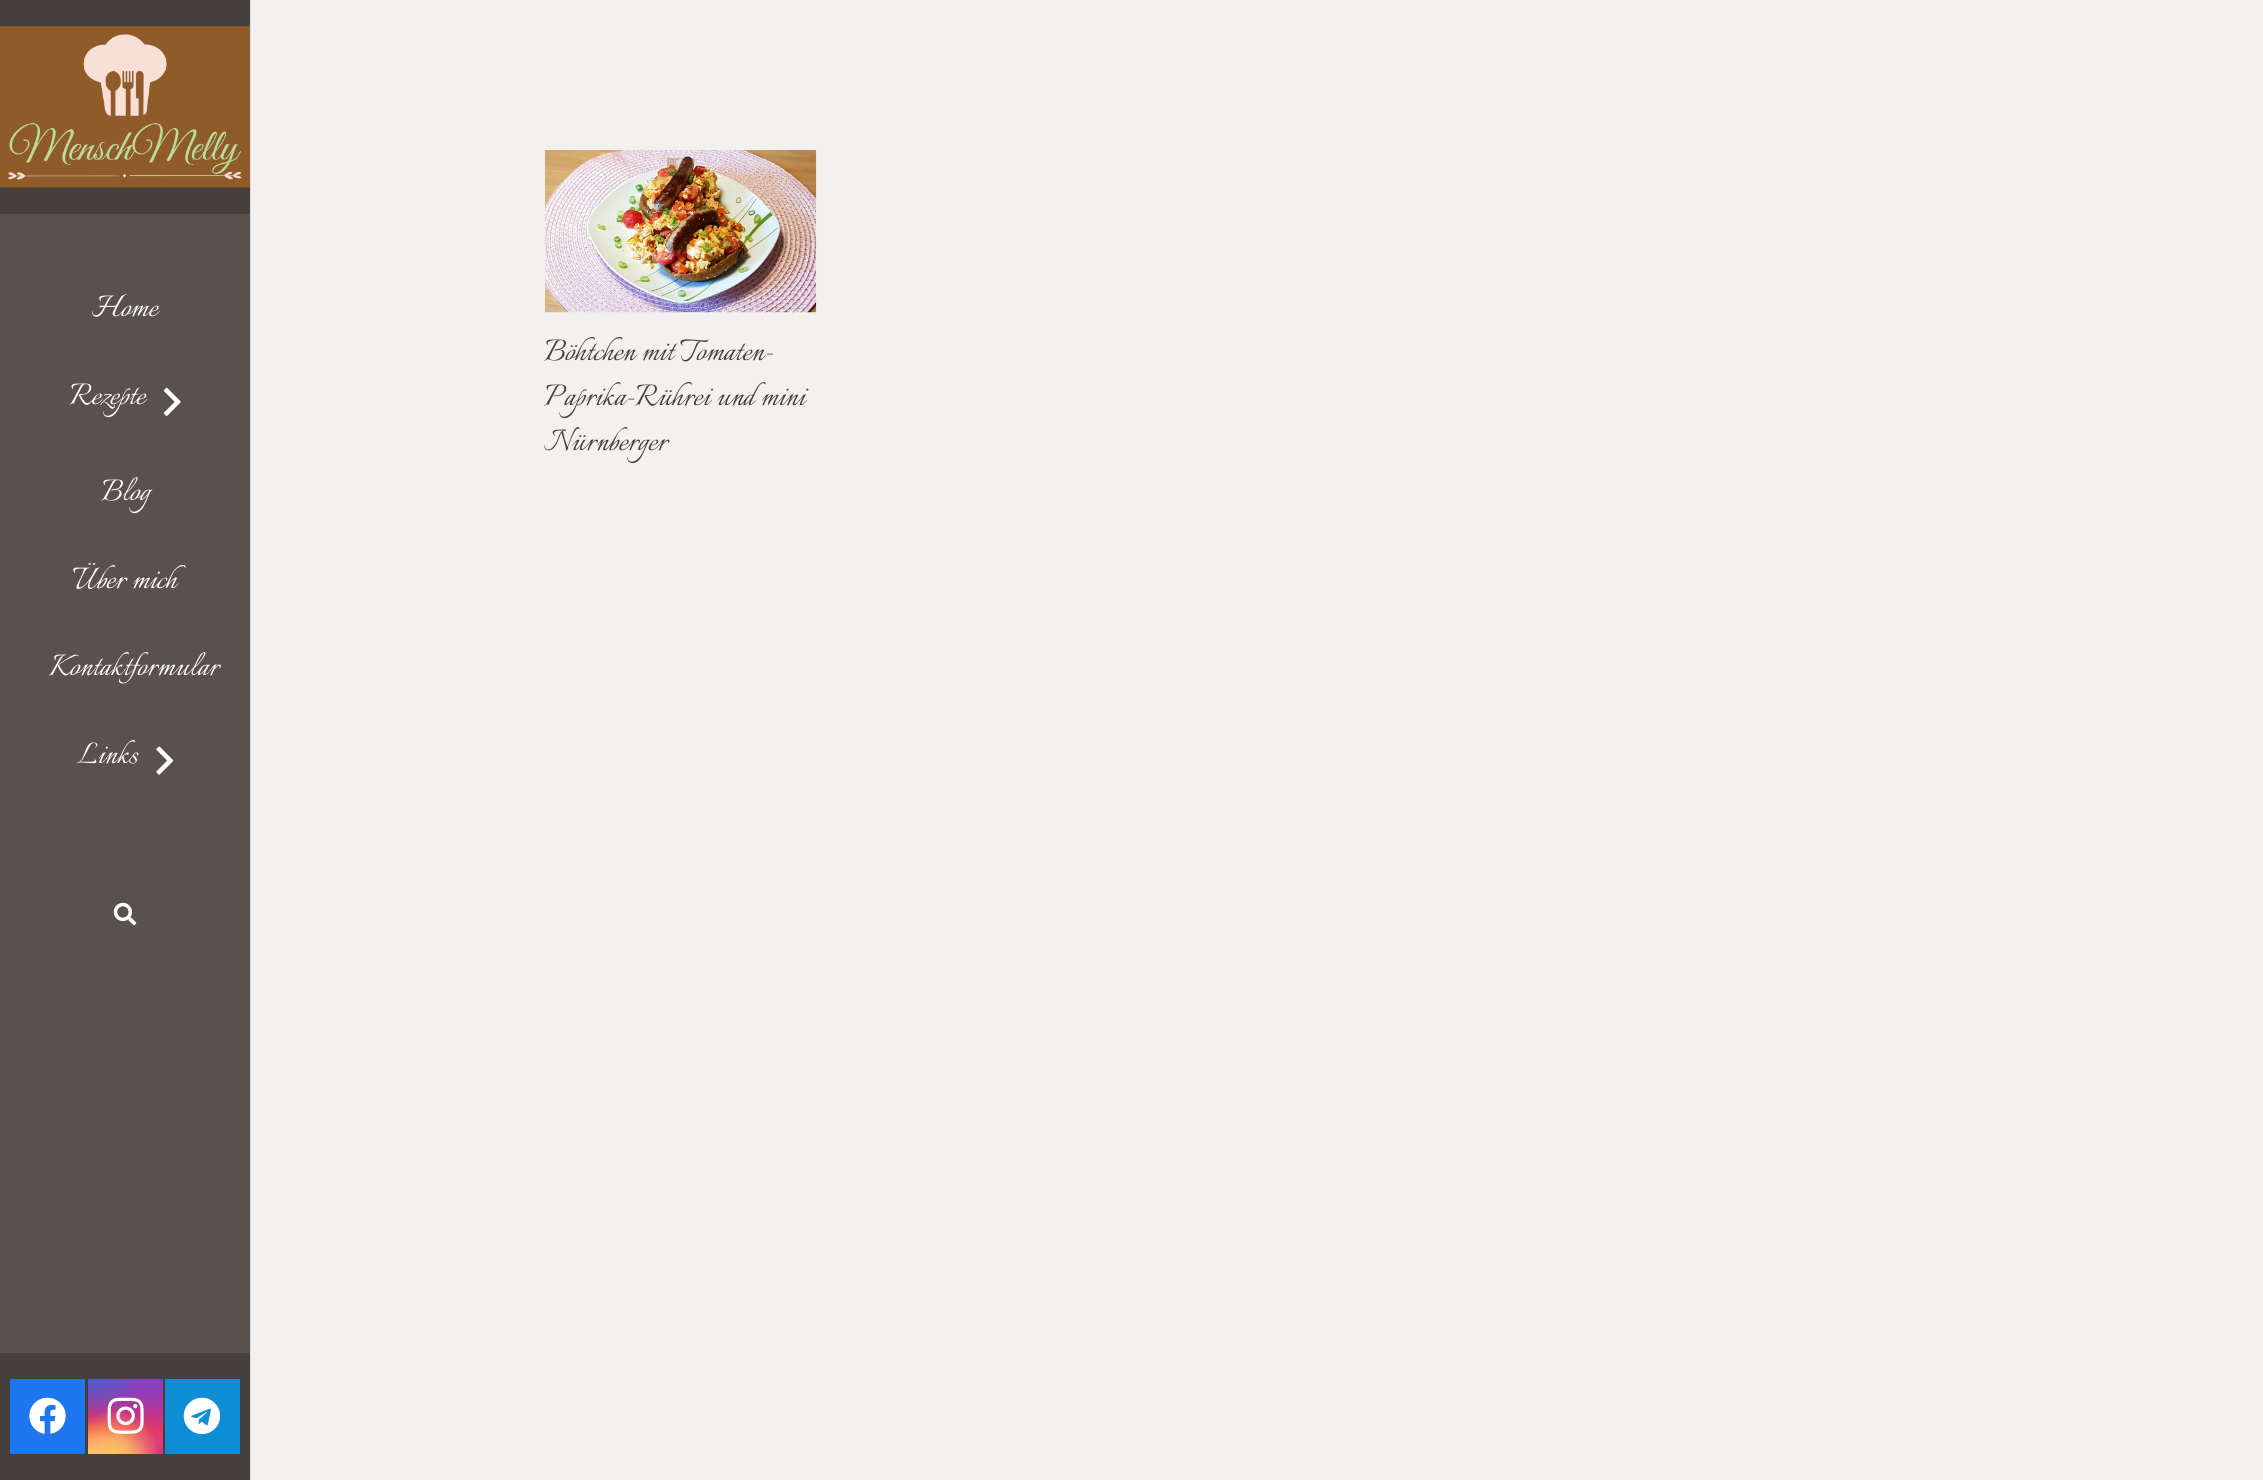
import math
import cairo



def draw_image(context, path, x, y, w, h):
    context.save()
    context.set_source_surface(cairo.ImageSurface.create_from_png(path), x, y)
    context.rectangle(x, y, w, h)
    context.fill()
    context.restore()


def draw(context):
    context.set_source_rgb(89 / 255, 82 / 255, 76 / 255)
    context.paint()
    context.set_source_rgb(242 / 255, 241 / 255, 240 / 255)
    context.rectangle(251, 0, 2012, 1480)
    context.fill()
    context.set_source_rgb(223 / 255, 222 / 255, 221 / 255)
    context.rectangle(250, 0, 1, 1480)
    context.fill()
    context.set_source_rgb(70 / 255, 64 / 255, 60 / 255)
    context.rectangle(0, 0, 250, 214)
    context.fill()
    draw_image(context, "images/1.png", 0, 26, 250, 162)
    draw_image(context, "images/2.png", 163, 387, 18, 29)
    draw_image(context, "images/3.png", 156, 746, 18, 29)
    draw_image(context, "images/4.png", 113, 902, 24, 24)
    context.rectangle(0, 1353, 250, 127)
    context.fill()
    context.set_source_rgb(30 / 255, 119 / 255, 240 / 255)
    context.rectangle(10, 1379, 75, 75)
    context.fill()
    draw_image(context, "images/5.png", 29, 1397, 37, 37)
    gradient = cairo.LinearGradient(125, 1379, 125, 1454)
    gradient.add_color_stop_rgba(0, 101 / 255, 89 / 255, 202 / 255, 1)
    gradient.add_color_stop_rgba(0.3, 188 / 255, 49 / 255, 143 / 255, 1)
    gradient.add_color_stop_rgba(0.5, 228 / 255, 46 / 255, 102 / 255, 1)
    gradient.add_color_stop_rgba(0.7, 250 / 255, 83 / 255, 50 / 255, 1)
    gradient.add_color_stop_rgba(1, 1, 220 / 255, 128 / 255, 1)
    context.set_source(gradient)
    context.rectangle(88, 1379, 75, 75)
    context.fill()
    gradient = cairo.RadialGradient(163, 1454, 0, 163, 1454, 106)
    gradient.add_color_stop_rgba(0, 217 / 255, 49 / 255, 122 / 255, 1)
    gradient.add_color_stop_rgba(1, 217 / 255, 49 / 255, 122 / 255, 0)
    context.set_source(gradient)
    context.rectangle(88, 1379, 75, 75)
    context.fill()
    gradient = cairo.RadialGradient(0, 0, 0, 0, 0, 1)
    gradient.set_matrix(cairo.Matrix(1 / 64, 0, 0, 1 / 127, -1 * 133 / 64, -1 * 1364 / 127))
    gradient.add_color_stop_rgba(0, 137 / 255, 61 / 255, 194 / 255, 1)
    gradient.add_color_stop_rgba(0.5, 137 / 255, 61 / 255, 194 / 255, 0)
    context.set_source(gradient)
    context.rectangle(105, 1379, 56, 47)
    context.fill()
    gradient = cairo.RadialGradient(163, 1379, 0, 163, 1379, 106)
    gradient.add_color_stop_rgba(0, 137 / 255, 61 / 255, 194 / 255, 1)
    gradient.add_color_stop_rgba(0.5, 137 / 255, 61 / 255, 194 / 255, 0)
    context.set_source(gradient)
    context.rectangle(116, 1379, 47, 52)
    context.fill()
    gradient = cairo.RadialGradient(0, 0, 0, 0, 0, 1)
    gradient.set_matrix(cairo.Matrix(1 / 85, 0, 0, 1 / 159, -1 * 103 / 85, -1 * 1341 / 159))
    gradient.add_color_stop_rgba(0, 82 / 255, 88 / 255, 207 / 255, 1)
    gradient.add_color_stop_rgba(0.5, 82 / 255, 88 / 255, 207 / 255, 0)
    context.set_source(gradient)
    context.rectangle(88, 1379, 50, 40)
    context.fill()
    gradient = cairo.RadialGradient(0, 0, 0, 0, 0, 1)
    gradient.set_matrix(cairo.Matrix(1 / 106, 0, 0, 1 / 133, -1 * 88 / 106, -1 * 1360 / 133))
    gradient.add_color_stop_rgba(0, 82 / 255, 88 / 255, 207 / 255, 1)
    gradient.add_color_stop_rgba(0.5, 82 / 255, 88 / 255, 207 / 255, 0)
    context.set_source(gradient)
    context.rectangle(88, 1379, 48, 46)
    context.fill()
    gradient = cairo.RadialGradient(95, 1484, 0, 95, 1484, 125)
    gradient.add_color_stop_rgba(0, 254 / 255, 218 / 255, 126 / 255, 1)
    gradient.add_color_stop_rgba(0.5, 254 / 255, 218 / 255, 126 / 255, 0)
    context.set_source(gradient)
    context.rectangle(88, 1423, 60, 31)
    context.fill()
    gradient = cairo.RadialGradient(114, 1454, 0, 114, 1454, 89)
    gradient.add_color_stop_rgba(0, 254 / 255, 197 / 255, 100 / 255, 1)
    gradient.add_color_stop_rgba(0.5, 254 / 255, 197 / 255, 100 / 255, 0)
    context.set_source(gradient)
    context.rectangle(88, 1410, 70, 44)
    context.fill()
    draw_image(context, "images/6.png", 107, 1397, 37, 37)
    context.set_source_rgb(14 / 255, 142 / 255, 212 / 255)
    context.rectangle(165, 1379, 75, 75)
    context.fill()
    draw_image(context, "images/7.png", 183, 1397, 38, 38)
    draw_image(context, "images/8.png", 545, 150, 272, 163)
    context.select_font_face("Italianno")
    context.set_font_size(37.5)
    context.set_source_rgb(1, 1, 1)
    context.move_to(92, 316)
    context.show_text("Home")
    context.move_to(69, 404)
    context.show_text("Rezepte")
    context.move_to(101, 500)
    context.show_text("Blog")
    context.move_to(73, 588)
    context.show_text("Über mich")
    context.move_to(49, 675)
    context.show_text("Kontaktformular")
    context.move_to(77, 763)
    context.show_text("Links")
    context.set_source_rgb(70 / 255, 64 / 255, 60 / 255)
    context.move_to(544, 360)
    context.show_text("Böhtchen mit Tomaten-")
    context.move_to(544, 405)
    context.show_text("Paprika-Rührei und mini")
    context.move_to(544, 450)
    context.show_text("Nürnberger")


surface = cairo.ImageSurface(cairo.Format.RGB24, 2263, 1480)
context = cairo.Context(surface)
options = cairo.FontOptions()
options.set_hint_metrics(cairo.HintMetrics.OFF)
options.set_hint_style(cairo.HintStyle.NONE)
context.set_font_options(options)
context.set_miter_limit(4)
draw(context)
surface.write_to_png("out.png")
